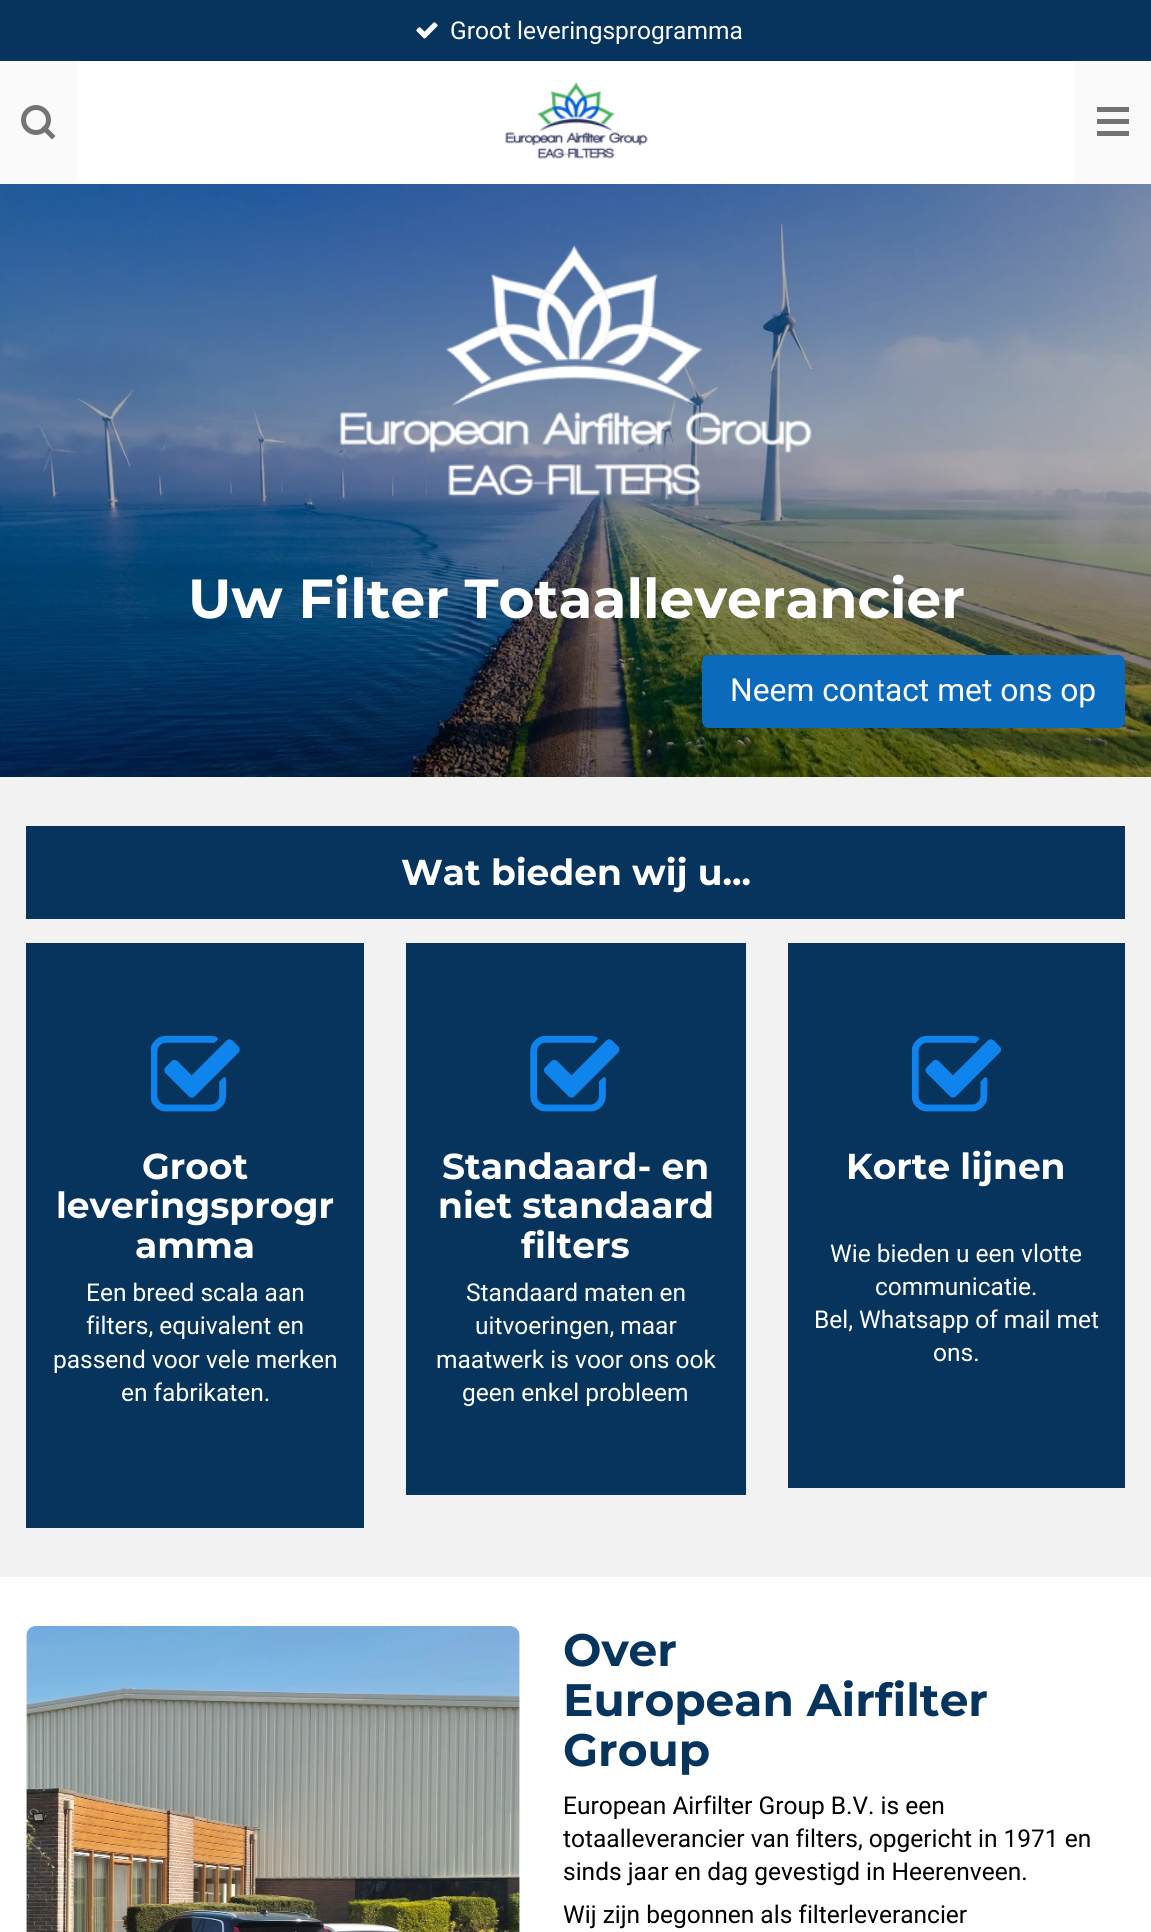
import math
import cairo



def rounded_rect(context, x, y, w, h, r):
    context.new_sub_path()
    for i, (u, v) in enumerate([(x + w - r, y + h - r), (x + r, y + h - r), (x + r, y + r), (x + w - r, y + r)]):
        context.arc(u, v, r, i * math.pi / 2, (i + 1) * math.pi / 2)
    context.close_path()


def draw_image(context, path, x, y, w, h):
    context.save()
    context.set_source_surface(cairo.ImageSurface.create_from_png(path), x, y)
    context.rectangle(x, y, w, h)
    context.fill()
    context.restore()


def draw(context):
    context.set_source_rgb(1, 1, 1)
    context.paint()
    context.set_source_rgb(6 / 255, 52 / 255, 93 / 255)
    context.rectangle(0, 0, 1151, 61)
    context.fill()
    draw_image(context, "images/1.png", 416, 22, 22, 17)
    context.set_source_rgb(250 / 255, 250 / 255, 250 / 255)
    context.rectangle(0, 61, 77, 123)
    context.fill()
    context.arc(36, 120, 12.5, 0, 2 * math.pi)
    context.set_source_rgb(115 / 255, 115 / 255, 115 / 255)
    context.set_line_width(5)
    context.stroke()
    context.new_path()
    context.move_to(44.5, 125)
    context.line_to(55.5, 136)
    context.line_to(52, 139.5)
    context.line_to(41, 128.5)
    context.close_path()
    context.fill()
    draw_image(context, "images/2.png", 505, 82, 143, 77)
    context.set_source_rgb(250 / 255, 250 / 255, 250 / 255)
    context.rectangle(1075, 61, 76, 123)
    context.fill()
    context.set_source_rgb(115 / 255, 115 / 255, 115 / 255)
    context.rectangle(1097, 119, 32, 5)
    context.fill()
    context.rectangle(1097, 107, 32, 5)
    context.fill()
    context.rectangle(1097, 131, 32, 5)
    context.fill()
    draw_image(context, "images/3.png", 0, 184, 1151, 593)
    draw_image(context, "images/4.png", 340, 245, 472, 252)
    context.set_source_rgb(12 / 255, 106 / 255, 189 / 255)
    rounded_rect(context, 702, 655, 423, 73, 7)
    context.fill()
    context.set_source_rgb(242 / 255, 242 / 255, 242 / 255)
    context.rectangle(0, 777, 1151, 800)
    context.fill()
    context.set_source_rgb(6 / 255, 52 / 255, 93 / 255)
    context.rectangle(26, 826, 1099, 93)
    context.fill()
    context.rectangle(26, 943, 338, 585)
    context.fill()
    draw_image(context, "images/5.png", 151, 1035, 89, 77)
    context.rectangle(406, 943, 340, 552)
    context.fill()
    draw_image(context, "images/6.png", 530, 1035, 90, 77)
    context.rectangle(788, 943, 337, 545)
    context.fill()
    draw_image(context, "images/7.png", 912, 1035, 89, 77)
    draw_image(context, "images/8.png", 26, 1626, 494, 306)
    context.select_font_face("Roboto")
    context.set_font_size(24.5)
    context.set_source_rgb(1, 1, 1)
    context.move_to(450, 39)
    context.show_text("Groot leveringsprogramma")
    context.select_font_face("Montserrat", cairo.FontSlant.NORMAL, cairo.FontWeight.BOLD)
    context.set_font_size(55)
    context.move_to(188, 618)
    context.show_text("Uw Filter Totaalleverancier")
    context.select_font_face("Roboto")
    context.set_font_size(31.8)
    context.move_to(730, 701)
    context.show_text("Neem contact met ons op")
    context.select_font_face("Montserrat", cairo.FontSlant.NORMAL, cairo.FontWeight.BOLD)
    context.set_font_size(36)
    context.move_to(401, 885)
    context.show_text("Wat bieden wij u...")
    context.move_to(142, 1179)
    context.show_text("Groot")
    context.move_to(56, 1218)
    context.show_text("leveringsprogr")
    context.move_to(135, 1258)
    context.show_text("amma")
    context.select_font_face("Roboto")
    context.set_font_size(24.5)
    context.move_to(86, 1301)
    context.show_text("Een breed scala aan")
    context.move_to(86, 1334)
    context.show_text("filters, equivalent en")
    context.move_to(53, 1368)
    context.show_text("passend voor vele merken")
    context.move_to(121, 1401)
    context.show_text("en fabrikaten.")
    context.select_font_face("Montserrat", cairo.FontSlant.NORMAL, cairo.FontWeight.BOLD)
    context.set_font_size(36)
    context.move_to(442, 1179)
    context.show_text("Standaard- en")
    context.move_to(438, 1218)
    context.show_text("niet standaard")
    context.move_to(521, 1258)
    context.show_text("filters")
    context.select_font_face("Roboto")
    context.set_font_size(24.5)
    context.move_to(466, 1301)
    context.show_text("Standaard maten en")
    context.move_to(475, 1334)
    context.show_text("uitvoeringen, maar")
    context.move_to(436, 1368)
    context.show_text("maatwerk is voor ons ook")
    context.move_to(462, 1401)
    context.show_text("geen enkel probleem")
    context.select_font_face("Montserrat", cairo.FontSlant.NORMAL, cairo.FontWeight.BOLD)
    context.set_font_size(36)
    context.move_to(846, 1179)
    context.show_text("Korte lijnen")
    context.select_font_face("Roboto")
    context.set_font_size(24.5)
    context.move_to(830, 1262)
    context.show_text("Wie bieden u een vlotte")
    context.move_to(875, 1295)
    context.show_text("communicatie.")
    context.move_to(814, 1328)
    context.show_text("Bel, Whatsapp of mail met")
    context.move_to(933, 1361)
    context.show_text("ons.")
    context.select_font_face("Montserrat", cairo.FontSlant.NORMAL, cairo.FontWeight.BOLD)
    context.set_font_size(45.5)
    context.set_source_rgb(6 / 255, 52 / 255, 93 / 255)
    context.move_to(563, 1666)
    context.show_text("Over")
    context.move_to(563, 1716)
    context.show_text("European Airfilter")
    context.move_to(563, 1766)
    context.show_text("Group")
    context.select_font_face("Roboto")
    context.set_font_size(24.5)
    context.set_source_rgb(0, 0, 0)
    context.move_to(563, 1814)
    context.show_text("European Airfilter Group B.V. is een")
    context.move_to(563, 1847)
    context.show_text("totaalleverancier van filters, opgericht in 1971 en")
    context.move_to(563, 1880)
    context.show_text("sinds jaar en dag gevestigd in Heerenveen.")
    context.move_to(563, 1923)
    context.show_text("Wij zijn begonnen als filterleverancier")


surface = cairo.ImageSurface(cairo.Format.RGB24, 1151, 1932)
context = cairo.Context(surface)
options = cairo.FontOptions()
options.set_hint_metrics(cairo.HintMetrics.OFF)
options.set_hint_style(cairo.HintStyle.NONE)
context.set_font_options(options)
context.set_miter_limit(4)
draw(context)
surface.write_to_png("out.png")
